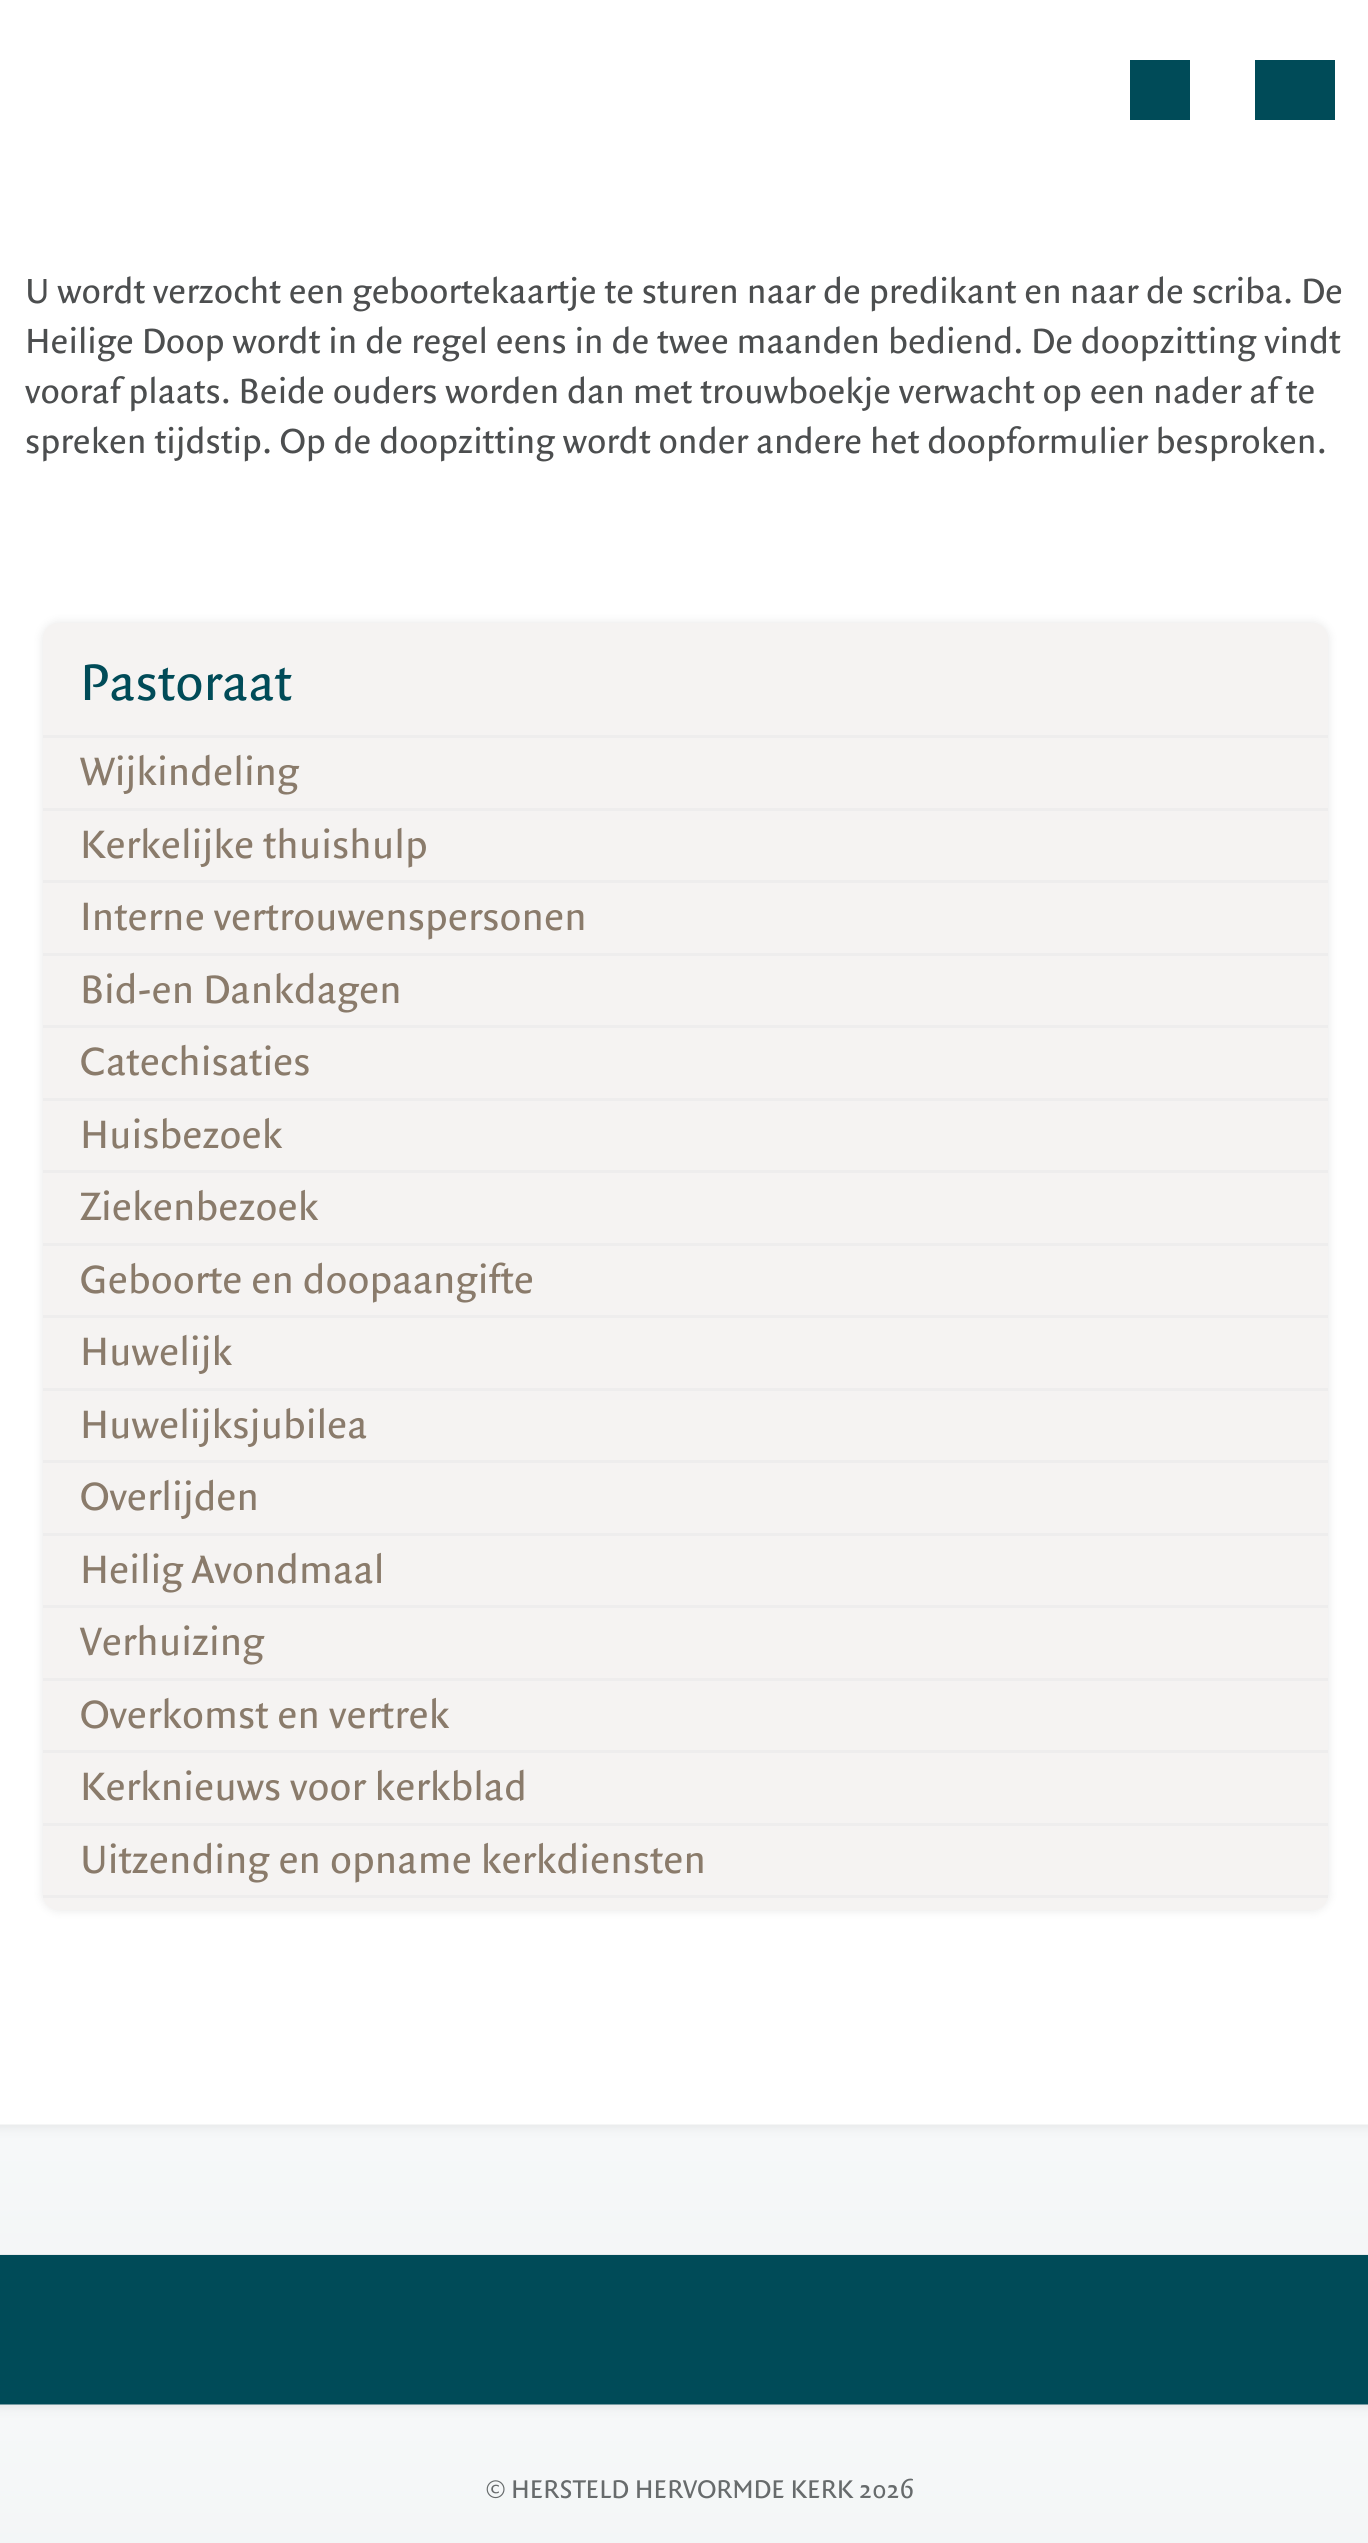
import math
import cairo



def rounded_rect(context, x, y, w, h, r):
    context.new_sub_path()
    for i, (u, v) in enumerate([(x + w - r, y + h - r), (x + r, y + h - r), (x + r, y + r), (x + w - r, y + r)]):
        context.arc(u, v, r, i * math.pi / 2, (i + 1) * math.pi / 2)
    context.close_path()


def draw_shadow(context, x, y, w, h, r, blur, alpha):
    context.push_group_with_content(cairo.Content.ALPHA)
    context.set_operator(cairo.Operator.SOURCE)
    for i in range(15, -16, -2):
        e = blur * i / 6
        if min(w, h) + 2 * e > 0:
            context.set_source_rgba(0, 0, 0, alpha * math.erfc((i - 1) / 8.5) / 2)
            rounded_rect(context, x - e, y - e, w + 2 * e, h + 2 * e, max(0, min(r + e + blur * .6, min(w, h) / 2 + e)))
            context.fill()
    context.mask(context.pop_group())


def draw_image(context, path, x, y, w, h):
    context.save()
    context.set_source_surface(cairo.ImageSurface.create_from_png(path), x, y)
    context.rectangle(x, y, w, h)
    context.fill()
    context.restore()


def draw(context):
    context.set_source_rgb(1, 1, 1)
    context.paint()
    context.set_source_rgb(0, 75 / 255, 88 / 255)
    context.rectangle(1130, 60, 60, 60)
    context.fill()
    context.rectangle(1255, 60, 80, 60)
    context.fill()
    context.set_source_rgb(0, 0, 0)
    draw_shadow(context, 43, 623, 1285, 1287, 15, 5, 0.1)
    context.set_source_rgb(245 / 255, 243 / 255, 242 / 255)
    rounded_rect(context, 43, 623, 1285, 1287, 15)
    context.fill()
    context.set_source_rgb(238 / 255, 237 / 255, 237 / 255)
    context.rectangle(43, 735, 1285, 3)
    context.fill()
    context.rectangle(43, 808, 1285, 3)
    context.fill()
    context.rectangle(43, 880, 1285, 3)
    context.fill()
    context.rectangle(43, 953, 1285, 3)
    context.fill()
    context.rectangle(43, 1025, 1285, 3)
    context.fill()
    context.rectangle(43, 1098, 1285, 3)
    context.fill()
    context.rectangle(43, 1170, 1285, 3)
    context.fill()
    context.rectangle(43, 1243, 1285, 3)
    context.fill()
    context.rectangle(43, 1315, 1285, 3)
    context.fill()
    context.rectangle(43, 1388, 1285, 3)
    context.fill()
    context.rectangle(43, 1460, 1285, 3)
    context.fill()
    context.rectangle(43, 1533, 1285, 3)
    context.fill()
    context.rectangle(43, 1605, 1285, 3)
    context.fill()
    context.rectangle(43, 1678, 1285, 3)
    context.fill()
    context.rectangle(43, 1750, 1285, 3)
    context.fill()
    context.rectangle(43, 1823, 1285, 3)
    context.fill()
    context.rectangle(43, 1895, 1285, 3)
    context.fill()
    context.set_source_rgb(218 / 255, 222 / 255, 223 / 255)
    context.rectangle(0, 2254, 1368, 1)
    context.fill()
    draw_image(context, "images/1.png", 0, 2124, 1368, 131)
    context.set_source_rgb(0, 75 / 255, 88 / 255)
    context.rectangle(0, 2255, 1368, 150)
    context.fill()
    draw_image(context, "images/2.png", 0, 2404, 1368, 139)
    context.select_font_face("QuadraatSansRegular")
    context.set_font_size(37.5)
    context.set_source_rgb(76 / 255, 78 / 255, 79 / 255)
    context.move_to(25, 303)
    context.show_text("U wordt verzocht een geboortekaartje te sturen naar de predikant en naar de scriba. De")
    context.move_to(25, 353)
    context.show_text("Heilige Doop wordt in de regel eens in de twee maanden bediend. De doopzitting vindt")
    context.move_to(25, 403)
    context.show_text("vooraf plaats. Beide ouders worden dan met trouwboekje verwacht op een nader af te")
    context.move_to(25, 453)
    context.show_text("spreken tijdstip. Op de doopzitting wordt onder andere het doopformulier besproken.")
    context.set_font_size(55)
    context.set_source_rgb(0, 75 / 255, 88 / 255)
    context.move_to(80, 700)
    context.show_text("Pastoraat")
    context.set_font_size(42.5)
    context.set_source_rgb(138 / 255, 123 / 255, 107 / 255)
    context.move_to(80, 785)
    context.show_text("Wijkindeling")
    context.move_to(80, 858)
    context.show_text("Kerkelijke thuishulp")
    context.move_to(80, 930)
    context.show_text("Interne vertrouwenspersonen")
    context.move_to(80, 1003)
    context.show_text("Bid-en Dankdagen")
    context.move_to(80, 1075)
    context.show_text("Catechisaties")
    context.move_to(80, 1148)
    context.show_text("Huisbezoek")
    context.move_to(80, 1220)
    context.show_text("Ziekenbezoek")
    context.move_to(80, 1293)
    context.show_text("Geboorte en doopaangifte")
    context.move_to(80, 1365)
    context.show_text("Huwelijk")
    context.move_to(80, 1438)
    context.show_text("Huwelijksjubilea")
    context.move_to(80, 1510)
    context.show_text("Overlijden")
    context.move_to(80, 1583)
    context.show_text("Heilig Avondmaal")
    context.move_to(80, 1655)
    context.show_text("Verhuizing")
    context.move_to(80, 1728)
    context.show_text("Overkomst en vertrek")
    context.move_to(80, 1800)
    context.show_text("Kerknieuws voor kerkblad")
    context.move_to(80, 1873)
    context.show_text("Uitzending en opname kerkdiensten")
    context.set_font_size(27.5)
    context.set_source_rgb(103 / 255, 107 / 255, 108 / 255)
    context.move_to(486, 2498)
    context.show_text("© HERSTELD HERVORMDE KERK 2026")


surface = cairo.ImageSurface(cairo.Format.RGB24, 1368, 2543)
context = cairo.Context(surface)
options = cairo.FontOptions()
options.set_hint_metrics(cairo.HintMetrics.OFF)
options.set_hint_style(cairo.HintStyle.NONE)
context.set_font_options(options)
context.set_miter_limit(4)
draw(context)
surface.write_to_png("out.png")
